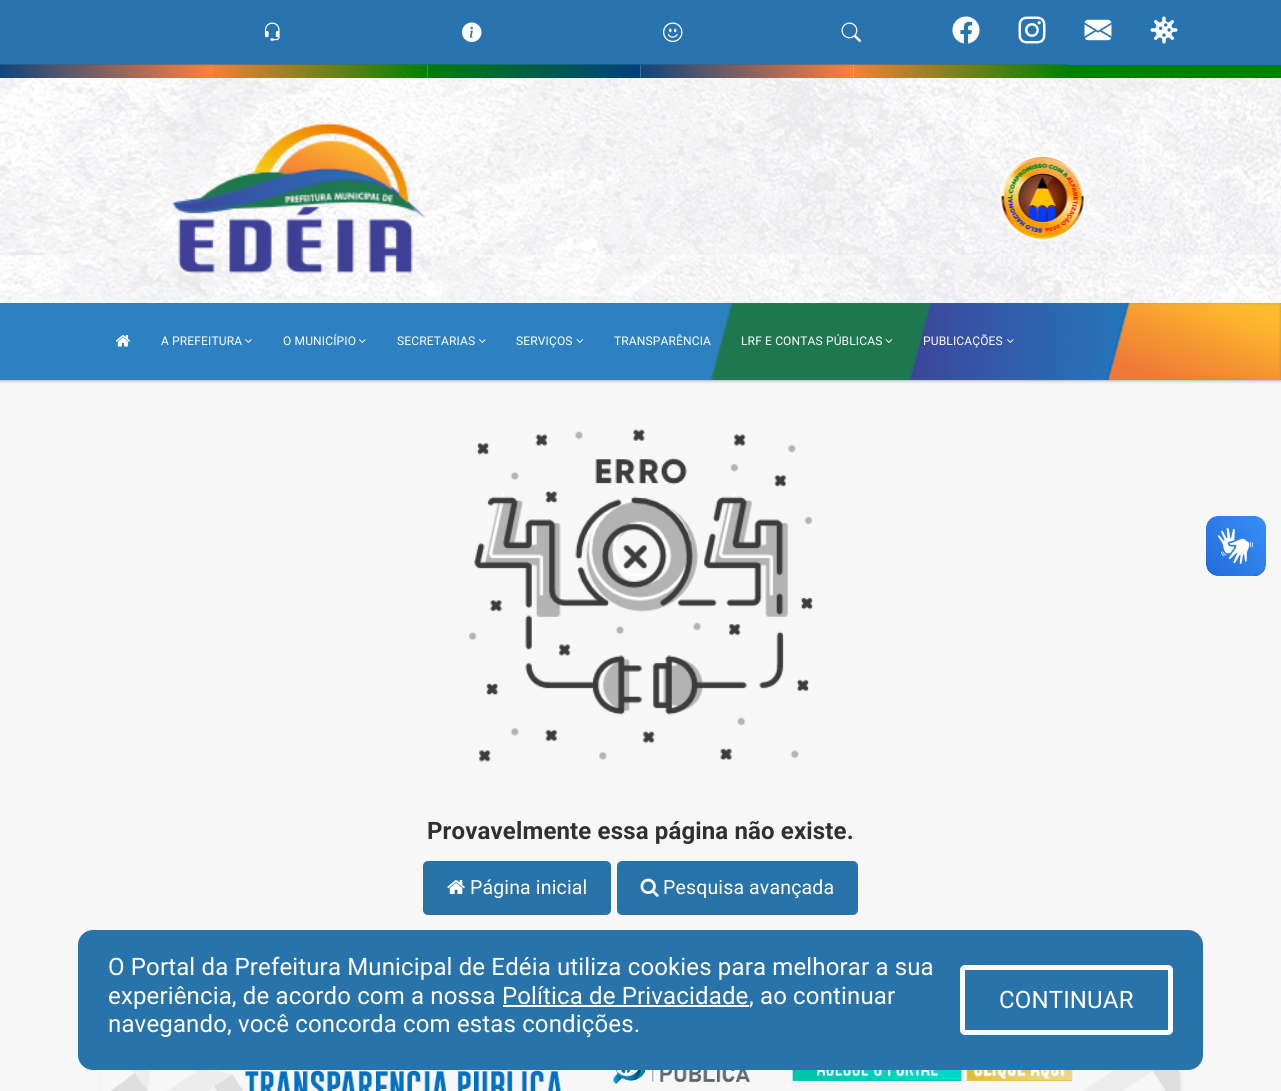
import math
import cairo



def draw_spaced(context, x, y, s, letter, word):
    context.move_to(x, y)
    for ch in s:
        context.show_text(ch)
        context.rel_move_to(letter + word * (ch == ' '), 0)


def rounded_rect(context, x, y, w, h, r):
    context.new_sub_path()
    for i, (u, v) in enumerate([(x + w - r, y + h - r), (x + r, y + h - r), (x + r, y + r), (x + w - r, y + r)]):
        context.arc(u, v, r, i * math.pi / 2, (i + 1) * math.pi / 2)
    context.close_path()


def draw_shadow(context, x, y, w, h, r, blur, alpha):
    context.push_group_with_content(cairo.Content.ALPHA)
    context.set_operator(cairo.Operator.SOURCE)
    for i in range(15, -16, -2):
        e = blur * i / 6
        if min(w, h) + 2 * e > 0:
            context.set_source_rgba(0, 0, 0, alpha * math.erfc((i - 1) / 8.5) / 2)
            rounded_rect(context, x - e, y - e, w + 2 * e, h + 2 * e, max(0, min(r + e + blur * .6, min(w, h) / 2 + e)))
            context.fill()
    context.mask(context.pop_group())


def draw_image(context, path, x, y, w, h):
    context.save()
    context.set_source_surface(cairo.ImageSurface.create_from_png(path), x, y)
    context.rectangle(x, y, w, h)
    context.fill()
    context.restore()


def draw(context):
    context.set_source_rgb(247 / 255, 247 / 255, 247 / 255)
    context.paint()
    context.set_source_rgb(0, 0, 0)
    draw_shadow(context, 0, 2, 1281, 379, 0, 1.5, 0.3)
    draw_image(context, "images/1.png", 0, 65, 1281, 238)
    context.set_source_rgb(45 / 255, 129 / 255, 193 / 255)
    context.rectangle(0, 0, 1281, 65)
    context.fill()
    draw_image(context, "images/10.png", 0, 64, 213, 14)
    draw_image(context, "images/11.png", 213, 64, 215, 14)
    draw_image(context, "images/12.png", 427, 64, 214, 14)
    draw_image(context, "images/13.png", 640, 64, 214, 14)
    draw_image(context, "images/14.png", 853, 64, 215, 14)
    context.set_source_rgba(0, 0, 0, 0.1)
    context.rectangle(0, 0, 1281, 65)
    context.fill()
    draw_image(context, "images/2.png", 264, 22, 16, 19)
    draw_image(context, "images/3.png", 462, 22, 20, 20)
    draw_image(context, "images/4.png", 663, 22, 20, 20)
    draw_image(context, "images/5.png", 841, 22, 20, 20)
    draw_image(context, "images/6.png", 952, 16, 28, 28)
    draw_image(context, "images/7.png", 1018, 16, 28, 28)
    draw_image(context, "images/8.png", 1084, 19, 28, 22)
    draw_image(context, "images/9.png", 1150, 16, 28, 28)
    context.set_source_rgb(0, 128 / 255, 0)
    context.rectangle(1068, 65, 213, 13)
    context.fill()
    draw_image(context, "images/15.png", 172, 122, 254, 152)
    draw_image(context, "images/16.png", 999, 155, 87, 86)
    context.set_source_rgb(45 / 255, 129 / 255, 193 / 255)
    context.rectangle(0, 303, 1281, 77)
    context.fill()
    draw_image(context, "images/17.png", 710, 303, 571, 77)
    draw_image(context, "images/18.png", 115, 335, 16, 12)
    draw_image(context, "images/19.png", 245, 339, 7, 4)
    draw_image(context, "images/19.png", 359, 339, 7, 4)
    draw_image(context, "images/19.png", 479, 339, 7, 4)
    draw_image(context, "images/20.png", 576, 339, 8, 4)
    draw_image(context, "images/21.png", 885, 339, 8, 4)
    draw_image(context, "images/22.png", 1007, 339, 7, 4)
    draw_image(context, "images/23.png", 1206, 516, 60, 60)
    draw_image(context, "images/24.png", 1206, 516, 60, 60)
    draw_image(context, "images/25.png", 468, 429, 346, 333)
    context.set_source_rgb(40 / 255, 115 / 255, 170 / 255)
    rounded_rect(context, 423, 861, 188, 54, 5)
    context.fill()
    draw_image(context, "images/26.png", 447, 880, 18, 14)
    rounded_rect(context, 617, 861, 241, 54, 5)
    context.fill()
    draw_image(context, "images/27.png", 640, 878, 19, 19)
    context.set_source_rgb(3 / 255, 0, 71 / 255)
    draw_shadow(context, 101, 1014, 1080, 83, 0, 2, 0.09)
    context.set_source_rgb(40 / 255, 115 / 255, 170 / 255)
    rounded_rect(context, 78, 930, 1125, 140, 15)
    context.fill()
    context.set_source_rgb(1, 1, 1)
    context.rectangle(503, 1005, 246, 2)
    context.fill()
    rounded_rect(context, 962.5, 967.5, 208, 65, 2.5)
    context.set_line_width(5)
    context.stroke()
    context.set_source_rgb(252 / 255, 252 / 255, 252 / 255)
    context.rectangle(1180, 1070, 1, 21)
    context.fill()
    draw_image(context, "images/28.png", 100, 1070, 1081, 21)
    context.select_font_face("Roboto")
    context.set_font_size(12)
    context.set_source_rgb(1, 1, 1)
    draw_spaced(context, 161, 345, "A PREFEITURA", 0.15, 0)
    draw_spaced(context, 283, 345, "O MUNICÍPIO", 0.15, 0)
    draw_spaced(context, 397, 345, "SECRETARIAS", 0.15, 0)
    draw_spaced(context, 516, 345, "SERVIÇOS", 0.15, 0)
    draw_spaced(context, 614, 345, "TRANSPARÊNCIA", 0.15, 0)
    draw_spaced(context, 741, 345, "LRF E CONTAS PÚBLICAS", 0.15, 0)
    draw_spaced(context, 923, 345, "PUBLICAÇÕES", 0.15, 0)
    context.select_font_face("Roboto", cairo.FontSlant.NORMAL, cairo.FontWeight.BOLD)
    context.set_font_size(24)
    context.set_source_rgb(48 / 255, 48 / 255, 48 / 255)
    draw_spaced(context, 427, 839, "Provavelmente essa página não existe.", 0.15, 0)
    context.select_font_face("Roboto")
    context.set_font_size(19.5)
    context.set_source_rgb(1, 1, 1)
    draw_spaced(context, 470, 894, "Página inicial", 0.15, 0)
    draw_spaced(context, 663, 894, "Pesquisa avançada", 0.15, 0)
    context.set_font_size(24)
    draw_spaced(context, 108, 975, "O Portal da Prefeitura Municipal de Edéia utiliza cookies para melhorar a sua", 0.15, 0)
    draw_spaced(context, 108, 1004, "experiência, de acordo com a nossa Política de Privacidade", 0.15, 0)
    draw_spaced(context, 749, 1004, ", ao continuar", 0.15, 0)
    draw_spaced(context, 108, 1032, "navegando, você concorda com estas condições.", 0.15, 0)
    draw_spaced(context, 999, 1008, "CONTINUAR", 0.15, 0)


surface = cairo.ImageSurface(cairo.Format.RGB24, 1281, 1091)
context = cairo.Context(surface)
options = cairo.FontOptions()
options.set_hint_metrics(cairo.HintMetrics.OFF)
options.set_hint_style(cairo.HintStyle.NONE)
context.set_font_options(options)
context.set_miter_limit(4)
draw(context)
surface.write_to_png("out.png")
